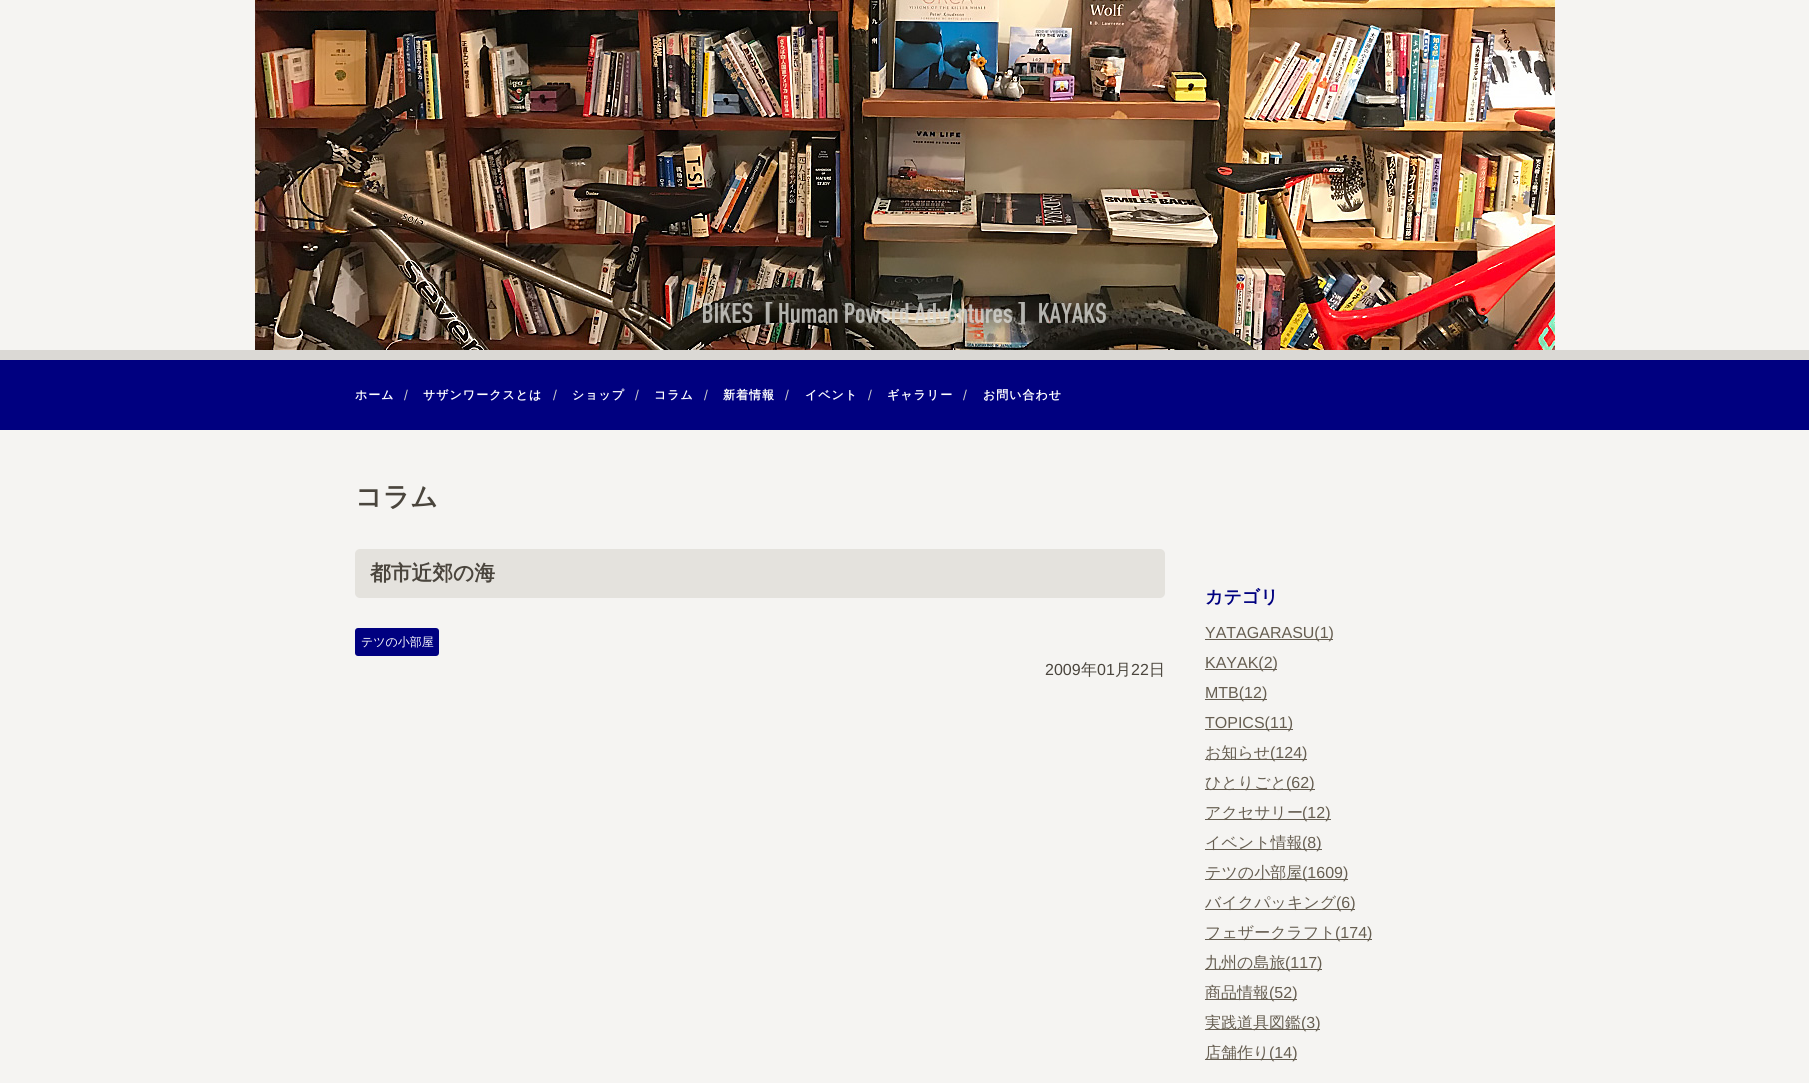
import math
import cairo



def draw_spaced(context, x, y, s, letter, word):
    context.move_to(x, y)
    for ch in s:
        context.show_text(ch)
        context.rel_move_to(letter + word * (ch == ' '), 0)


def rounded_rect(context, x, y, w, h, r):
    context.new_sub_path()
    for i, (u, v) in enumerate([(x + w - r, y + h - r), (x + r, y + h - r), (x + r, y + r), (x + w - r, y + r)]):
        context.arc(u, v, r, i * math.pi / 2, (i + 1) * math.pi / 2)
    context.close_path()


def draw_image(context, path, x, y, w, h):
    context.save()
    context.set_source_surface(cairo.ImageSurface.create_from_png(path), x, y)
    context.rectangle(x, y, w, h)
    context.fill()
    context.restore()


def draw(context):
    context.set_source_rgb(245 / 255, 244 / 255, 242 / 255)
    context.paint()
    draw_image(context, "images/1.png", 255, 0, 1300, 350)
    draw_image(context, "images/2.png", 703, 302, 403, 23)
    context.set_source_rgb(0, 0, 128 / 255)
    context.rectangle(0, 360, 1809, 70)
    context.fill()
    context.set_source_rgb(219 / 255, 217 / 255, 213 / 255)
    context.rectangle(0, 350, 1809, 10)
    context.fill()
    context.set_source_rgb(228 / 255, 226 / 255, 221 / 255)
    rounded_rect(context, 355, 549, 810, 49, 5)
    context.fill()
    context.set_source_rgb(0, 0, 128 / 255)
    rounded_rect(context, 355, 628, 84, 28, 3)
    context.fill()
    context.set_source_rgb(102 / 255, 94 / 255, 81 / 255)
    context.rectangle(1205, 639, 128, 1)
    context.fill()
    context.rectangle(1205, 669, 72, 1)
    context.fill()
    context.rectangle(1205, 699, 62, 1)
    context.fill()
    context.rectangle(1205, 729, 88, 1)
    context.fill()
    context.rectangle(1205, 759, 102, 1)
    context.fill()
    context.rectangle(1205, 789, 110, 1)
    context.fill()
    context.rectangle(1205, 819, 126, 1)
    context.fill()
    context.rectangle(1205, 849, 117, 1)
    context.fill()
    context.rectangle(1205, 879, 143, 1)
    context.fill()
    context.rectangle(1205, 909, 150, 1)
    context.fill()
    context.rectangle(1205, 939, 167, 1)
    context.fill()
    context.rectangle(1205, 969, 117, 1)
    context.fill()
    context.rectangle(1205, 999, 92, 1)
    context.fill()
    context.rectangle(1205, 1029, 115, 1)
    context.fill()
    context.rectangle(1205, 1059, 92, 1)
    context.fill()
    context.select_font_face("WenQuanYi Zen Hei", cairo.FontSlant.NORMAL, cairo.FontWeight.BOLD)
    context.set_font_size(12)
    context.set_source_rgb(1, 1, 1)
    draw_spaced(context, 355, 399, "ホーム", 1, 0)
    context.select_font_face("Sintony")
    context.set_source_rgb(204 / 255, 204 / 255, 204 / 255)
    draw_spaced(context, 404, 399, "/", 1, 0)
    context.select_font_face("WenQuanYi Zen Hei", cairo.FontSlant.NORMAL, cairo.FontWeight.BOLD)
    context.set_source_rgb(1, 1, 1)
    draw_spaced(context, 423, 399, "サザンワークスとは", 1, 0)
    context.select_font_face("Sintony")
    context.set_source_rgb(204 / 255, 204 / 255, 204 / 255)
    draw_spaced(context, 553, 399, "/", 1, 0)
    context.select_font_face("WenQuanYi Zen Hei", cairo.FontSlant.NORMAL, cairo.FontWeight.BOLD)
    context.set_source_rgb(1, 1, 1)
    draw_spaced(context, 572, 399, "ショップ", 1, 0)
    context.select_font_face("Sintony")
    context.set_source_rgb(204 / 255, 204 / 255, 204 / 255)
    draw_spaced(context, 635, 399, "/", 1, 0)
    context.select_font_face("WenQuanYi Zen Hei", cairo.FontSlant.NORMAL, cairo.FontWeight.BOLD)
    context.set_source_rgb(1, 1, 1)
    draw_spaced(context, 654, 399, "コラム", 1, 0)
    context.select_font_face("Sintony")
    context.set_source_rgb(204 / 255, 204 / 255, 204 / 255)
    draw_spaced(context, 704, 399, "/", 1, 0)
    context.select_font_face("WenQuanYi Zen Hei", cairo.FontSlant.NORMAL, cairo.FontWeight.BOLD)
    context.set_source_rgb(1, 1, 1)
    draw_spaced(context, 723, 399, "新着情報", 1, 0)
    context.select_font_face("Sintony")
    context.set_source_rgb(204 / 255, 204 / 255, 204 / 255)
    draw_spaced(context, 785, 399, "/", 1, 0)
    context.select_font_face("WenQuanYi Zen Hei", cairo.FontSlant.NORMAL, cairo.FontWeight.BOLD)
    context.set_source_rgb(1, 1, 1)
    draw_spaced(context, 805, 399, "イベント", 1, 0)
    context.select_font_face("Sintony")
    context.set_source_rgb(204 / 255, 204 / 255, 204 / 255)
    draw_spaced(context, 868, 399, "/", 1, 0)
    context.select_font_face("WenQuanYi Zen Hei", cairo.FontSlant.NORMAL, cairo.FontWeight.BOLD)
    context.set_source_rgb(1, 1, 1)
    draw_spaced(context, 887, 399, "ギャラリー", 1, 0)
    context.select_font_face("Sintony")
    context.set_source_rgb(204 / 255, 204 / 255, 204 / 255)
    draw_spaced(context, 963, 399, "/", 1, 0)
    context.select_font_face("WenQuanYi Zen Hei", cairo.FontSlant.NORMAL, cairo.FontWeight.BOLD)
    context.set_source_rgb(1, 1, 1)
    draw_spaced(context, 983, 399, "お問い合わせ", 1, 0)
    context.set_font_size(27)
    context.set_source_rgb(74 / 255, 69 / 255, 61 / 255)
    context.move_to(355, 506)
    context.show_text("コラム")
    context.set_font_size(20.75)
    context.move_to(370, 580)
    context.show_text("都市近郊の海")
    context.select_font_face("WenQuanYi Zen Hei Medium")
    context.set_font_size(12)
    context.set_source_rgb(1, 1, 1)
    context.move_to(361, 646)
    context.show_text("テツの小部屋")
    context.select_font_face("Liberation Sans")
    context.set_font_size(16)
    context.set_source_rgb(74 / 255, 69 / 255, 61 / 255)
    context.move_to(1045, 675)
    context.show_text("2009")
    context.select_font_face("WenQuanYi Zen Hei Medium")
    context.move_to(1081, 675)
    context.show_text("年")
    context.select_font_face("Liberation Sans")
    context.move_to(1097, 675)
    context.show_text("01")
    context.select_font_face("WenQuanYi Zen Hei Medium")
    context.move_to(1115, 675)
    context.show_text("月")
    context.select_font_face("Liberation Sans")
    context.move_to(1131, 675)
    context.show_text("22")
    context.select_font_face("WenQuanYi Zen Hei Medium")
    context.move_to(1149, 675)
    context.show_text("日")
    context.select_font_face("WenQuanYi Zen Hei", cairo.FontSlant.NORMAL, cairo.FontWeight.BOLD)
    context.set_font_size(18)
    context.set_source_rgb(0, 0, 128 / 255)
    context.move_to(1205, 603)
    context.show_text("カテゴリ")
    context.select_font_face("Liberation Sans")
    context.set_font_size(16)
    context.set_source_rgb(102 / 255, 94 / 255, 81 / 255)
    context.move_to(1205, 638)
    context.show_text("YATAGARASU(1)")
    context.move_to(1205, 668)
    context.show_text("KAYAK(2)")
    context.move_to(1205, 698)
    context.show_text("MTB(12)")
    context.move_to(1205, 728)
    context.show_text("TOPICS(11)")
    context.select_font_face("WenQuanYi Zen Hei Medium")
    context.move_to(1205, 758)
    context.show_text("お知らせ")
    context.select_font_face("Liberation Sans")
    context.move_to(1270, 758)
    context.show_text("(124)")
    context.select_font_face("WenQuanYi Zen Hei Medium")
    context.move_to(1205, 788)
    context.show_text("ひとりごと")
    context.select_font_face("Liberation Sans")
    context.move_to(1286, 788)
    context.show_text("(62)")
    context.select_font_face("WenQuanYi Zen Hei Medium")
    context.move_to(1205, 818)
    context.show_text("アクセサリー")
    context.select_font_face("Liberation Sans")
    context.move_to(1302, 818)
    context.show_text("(12)")
    context.select_font_face("WenQuanYi Zen Hei Medium")
    context.move_to(1205, 848)
    context.show_text("イベント情報")
    context.select_font_face("Liberation Sans")
    context.move_to(1302, 848)
    context.show_text("(8)")
    context.select_font_face("WenQuanYi Zen Hei Medium")
    context.move_to(1205, 878)
    context.show_text("テツの小部屋")
    context.select_font_face("Liberation Sans")
    context.move_to(1302, 878)
    context.show_text("(1609)")
    context.select_font_face("WenQuanYi Zen Hei Medium")
    context.move_to(1205, 908)
    context.show_text("バイクパッキング")
    context.select_font_face("Liberation Sans")
    context.move_to(1336, 908)
    context.show_text("(6)")
    context.select_font_face("WenQuanYi Zen Hei Medium")
    context.move_to(1205, 938)
    context.show_text("フェザークラフト")
    context.select_font_face("Liberation Sans")
    context.move_to(1335, 938)
    context.show_text("(174)")
    context.select_font_face("WenQuanYi Zen Hei Medium")
    context.move_to(1205, 968)
    context.show_text("九州の島旅")
    context.select_font_face("Liberation Sans")
    context.move_to(1285, 968)
    context.show_text("(117)")
    context.select_font_face("WenQuanYi Zen Hei Medium")
    context.move_to(1205, 998)
    context.show_text("商品情報")
    context.select_font_face("Liberation Sans")
    context.move_to(1269, 998)
    context.show_text("(52)")
    context.select_font_face("WenQuanYi Zen Hei Medium")
    context.move_to(1205, 1028)
    context.show_text("実践道具図鑑")
    context.select_font_face("Liberation Sans")
    context.move_to(1301, 1028)
    context.show_text("(3)")
    context.select_font_face("WenQuanYi Zen Hei Medium")
    context.move_to(1205, 1058)
    context.show_text("店舗作り")
    context.select_font_face("Liberation Sans")
    context.move_to(1269, 1058)
    context.show_text("(14)")


surface = cairo.ImageSurface(cairo.Format.RGB24, 1809, 1083)
context = cairo.Context(surface)
options = cairo.FontOptions()
options.set_hint_metrics(cairo.HintMetrics.OFF)
options.set_hint_style(cairo.HintStyle.NONE)
context.set_font_options(options)
context.set_miter_limit(4)
draw(context)
surface.write_to_png("out.png")
